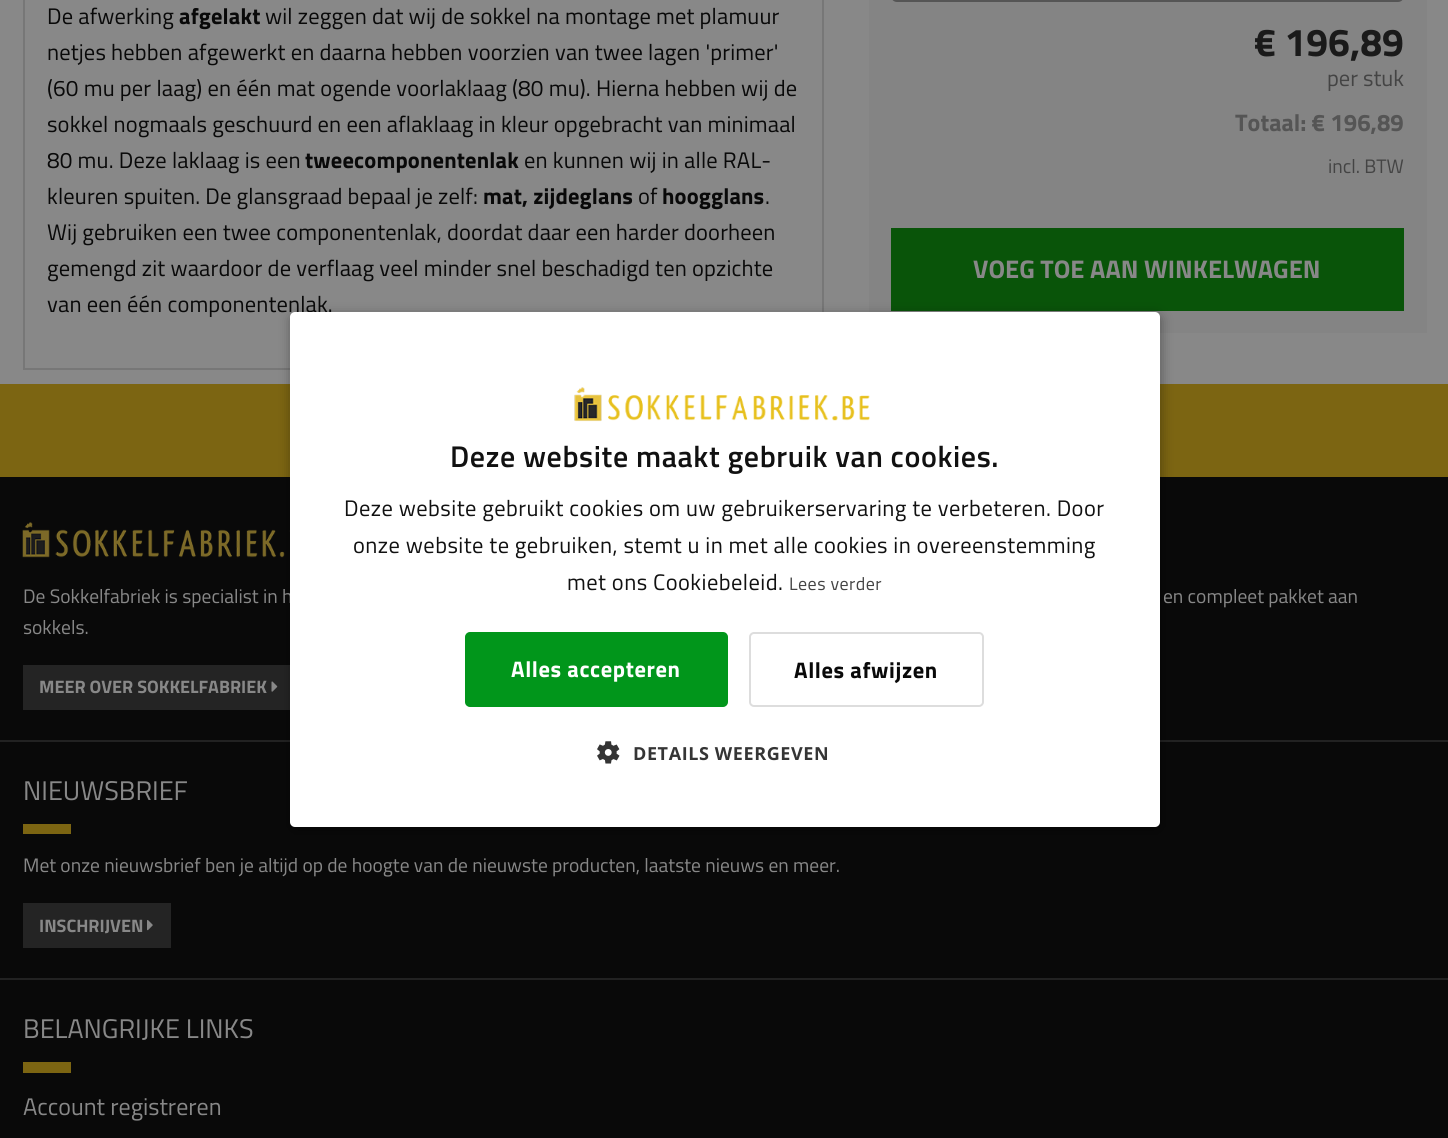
import math
import cairo



def draw_spaced(context, x, y, s, letter, word):
    context.move_to(x, y)
    for ch in s:
        context.show_text(ch)
        context.rel_move_to(letter + word * (ch == ' '), 0)


def rounded_rect(context, x, y, w, h, r):
    context.new_sub_path()
    for i, (u, v) in enumerate([(x + w - r, y + h - r), (x + r, y + h - r), (x + r, y + r), (x + w - r, y + r)]):
        context.arc(u, v, r, i * math.pi / 2, (i + 1) * math.pi / 2)
    context.close_path()


def draw_shadow(context, x, y, w, h, r, blur, alpha):
    context.push_group_with_content(cairo.Content.ALPHA)
    context.set_operator(cairo.Operator.SOURCE)
    for i in range(15, -16, -2):
        e = blur * i / 6
        if min(w, h) + 2 * e > 0:
            context.set_source_rgba(0, 0, 0, alpha * math.erfc((i - 1) / 8.5) / 2)
            rounded_rect(context, x - e, y - e, w + 2 * e, h + 2 * e, max(0, min(r + e + blur * .6, min(w, h) / 2 + e)))
            context.fill()
    context.mask(context.pop_group())


def draw_image(context, path, x, y, w, h):
    context.save()
    context.set_source_surface(cairo.ImageSurface.create_from_png(path), x, y)
    context.rectangle(x, y, w, h)
    context.fill()
    context.restore()


def draw(context):
    context.set_source_rgb(9 / 255, 9 / 255, 9 / 255)
    context.paint()
    context.set_source_rgb(136 / 255, 136 / 255, 136 / 255)
    context.rectangle(0, 0, 1448, 384)
    context.fill()
    context.set_source_rgb(119 / 255, 119 / 255, 119 / 255)
    context.rectangle(822, 0, 2, 312)
    context.fill()
    context.rectangle(23, 368, 267, 2)
    context.fill()
    context.rectangle(23, 0, 2, 369)
    context.fill()
    context.set_source_rgb(132 / 255, 132 / 255, 132 / 255)
    context.rectangle(869, 0, 558, 333)
    context.fill()
    rounded_rect(context, 892, -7, 511, 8, 5)
    context.set_source_rgb(85 / 255, 85 / 255, 85 / 255)
    context.stroke()
    context.set_source_rgb(9 / 255, 84 / 255, 9 / 255)
    context.rectangle(891, 228, 513, 83)
    context.fill()
    context.set_source_rgb(124 / 255, 101 / 255, 18 / 255)
    context.rectangle(0, 384, 1448, 93)
    context.fill()
    context.set_source_rgb(34 / 255, 34 / 255, 34 / 255)
    context.rectangle(0, 740, 1448, 2)
    context.fill()
    draw_image(context, "images/3.png", 22, 522, 268, 36)
    context.set_source_rgb(36 / 255, 36 / 255, 36 / 255)
    context.rectangle(23, 665, 267, 45)
    context.fill()
    draw_image(context, "images/4.png", 271, 681, 7, 11)
    context.set_source_rgb(0, 0, 0)
    draw_shadow(context, 291, 315, 870, 515, 5, 6, 0.35)
    context.set_source_rgb(34 / 255, 34 / 255, 34 / 255)
    context.rectangle(0, 978, 1448, 2)
    context.fill()
    context.set_source_rgb(124 / 255, 101 / 255, 18 / 255)
    context.rectangle(23, 824, 48, 10)
    context.fill()
    context.set_source_rgb(36 / 255, 36 / 255, 36 / 255)
    context.rectangle(23, 903, 148, 45)
    context.fill()
    draw_image(context, "images/5.png", 147, 920, 6, 11)
    context.set_source_rgb(124 / 255, 101 / 255, 18 / 255)
    context.rectangle(23, 1062, 48, 11)
    context.fill()
    context.select_font_face("Titillium Web")
    context.set_font_size(22.5)
    context.set_source_rgb(9 / 255, 9 / 255, 9 / 255)
    draw_spaced(context, 47, 24, "De afwerking", 0.15, 0)
    context.select_font_face("Titillium Web", cairo.FontSlant.NORMAL, cairo.FontWeight.BOLD)
    draw_spaced(context, 179, 24, "afgelakt", 0.15, 0)
    context.select_font_face("Titillium Web")
    draw_spaced(context, 265, 24, "wil zeggen dat wij de sokkel na montage met plamuur", 0.15, 0)
    draw_spaced(context, 47, 60, "netjes hebben afgewerkt en daarna hebben voorzien van twee lagen 'primer'", 0.15, 0)
    draw_spaced(context, 47, 96, "(60 mu per laag) en één mat ogende voorlaklaag (80 mu). Hierna hebben wij de", 0.15, 0)
    draw_spaced(context, 47, 132, "sokkel nogmaals geschuurd en een aflaklaag in kleur opgebracht van minimaal", 0.15, 0)
    draw_spaced(context, 47, 168, "80 mu. Deze laklaag is een", 0.15, 0)
    context.select_font_face("Titillium Web", cairo.FontSlant.NORMAL, cairo.FontWeight.BOLD)
    draw_spaced(context, 305, 168, "tweecomponentenlak", 0.15, 0)
    context.select_font_face("Titillium Web")
    draw_spaced(context, 524, 168, "en kunnen wij in alle RAL-", 0.15, 0)
    draw_spaced(context, 47, 204, "kleuren spuiten. De glansgraad bepaal je zelf:", 0.15, 0)
    context.select_font_face("Titillium Web", cairo.FontSlant.NORMAL, cairo.FontWeight.BOLD)
    draw_spaced(context, 483, 204, "mat, zijdeglans", 0.15, 0)
    context.select_font_face("Titillium Web")
    draw_spaced(context, 638, 204, "of", 0.15, 0)
    context.select_font_face("Titillium Web", cairo.FontSlant.NORMAL, cairo.FontWeight.BOLD)
    draw_spaced(context, 662, 204, "hoogglans", 0.15, 0)
    context.select_font_face("Titillium Web")
    draw_spaced(context, 765, 204, ".", 0.15, 0)
    draw_spaced(context, 47, 240, "Wij gebruiken een twee componentenlak, doordat daar een harder doorheen", 0.15, 0)
    draw_spaced(context, 47, 276, "gemengd zit waardoor de verflaag veel minder snel beschadigd ten opzichte", 0.15, 0)
    draw_spaced(context, 47, 312, "van een één componentenlak.", 0.15, 0)
    context.select_font_face("Titillium Web", cairo.FontSlant.NORMAL, cairo.FontWeight.BOLD)
    context.set_font_size(39)
    context.set_source_rgb(26 / 255, 26 / 255, 26 / 255)
    context.move_to(1254, 56)
    context.show_text("€ 196,89")
    context.select_font_face("Titillium Web")
    context.set_font_size(22.5)
    context.set_source_rgb(68 / 255, 68 / 255, 68 / 255)
    context.move_to(1327, 86)
    context.show_text("per stuk")
    context.select_font_face("Titillium Web", cairo.FontSlant.NORMAL, cairo.FontWeight.BOLD)
    context.set_font_size(24)
    context.set_source_rgb(85 / 255, 85 / 255, 85 / 255)
    context.move_to(1235, 131)
    context.show_text("Totaal: € 196,89")
    context.select_font_face("Titillium Web")
    context.set_font_size(19.5)
    context.set_source_rgb(68 / 255, 68 / 255, 68 / 255)
    context.move_to(1328, 173)
    context.show_text("incl. BTW")
    context.select_font_face("Titillium Web", cairo.FontSlant.NORMAL, cairo.FontWeight.BOLD)
    context.set_font_size(25.5)
    context.set_source_rgb(136 / 255, 136 / 255, 136 / 255)
    context.move_to(973, 278)
    context.show_text("VOEG TOE AAN WINKELWAGEN")
    context.select_font_face("Titillium Web")
    context.set_font_size(19.5)
    context.move_to(23, 603)
    context.show_text("De Sokkelfabriek is specialist in h")
    context.set_source_rgb(1, 1, 1)
    rounded_rect(context, 290, 312, 870, 515, 5)
    context.fill()
    context.select_font_face("Titillium Web SemiBold")
    context.set_font_size(30)
    context.set_source_rgb(17 / 255, 17 / 255, 17 / 255)
    draw_spaced(context, 450, 467, "Deze website maakt gebruik van cookies.", 0.6, 0)
    draw_image(context, "images/1.png", 574, 387, 296, 35)
    draw_image(context, "images/2.png", 597, 741, 23, 23)
    context.select_font_face("Open Sans", cairo.FontSlant.NORMAL, cairo.FontWeight.BOLD)
    context.set_font_size(18)
    context.set_source_rgb(53 / 255, 53 / 255, 53 / 255)
    draw_spaced(context, 633, 760, "DETAILS WEERGEVEN", 0.6, 0)
    rounded_rect(context, 750, 633, 233, 73, 4)
    context.set_source_rgb(221 / 255, 221 / 255, 221 / 255)
    context.stroke()
    context.select_font_face("Titillium Web", cairo.FontSlant.NORMAL, cairo.FontWeight.BOLD)
    context.set_font_size(22.5)
    context.set_source_rgb(9 / 255, 9 / 255, 9 / 255)
    draw_spaced(context, 794, 678, "Alles afwijzen", 0.6, 0)
    context.set_source_rgb(1 / 255, 150 / 255, 27 / 255)
    rounded_rect(context, 466, 633, 261, 73, 4)
    context.fill_preserve()
    context.stroke()
    context.set_source_rgb(1, 1, 1)
    draw_spaced(context, 511, 677, "Alles accepteren", 0.6, 0)
    context.select_font_face("Titillium Web")
    context.set_font_size(18)
    context.set_source_rgb(68 / 255, 68 / 255, 68 / 255)
    draw_spaced(context, 789, 590, "Lees verder", 0.45, 0)
    context.set_font_size(22.5)
    context.set_source_rgb(17 / 255, 17 / 255, 17 / 255)
    draw_spaced(context, 567, 590, "met ons Cookiebeleid.", 0.45, 0)
    draw_spaced(context, 353, 553, "onze website te gebruiken, stemt u in met alle cookies in overeenstemming", 0.45, 0)
    draw_spaced(context, 344, 516, "Deze website gebruikt cookies om uw gebruikerservaring te verbeteren. Door", 0.45, 0)
    context.set_font_size(19.5)
    context.set_source_rgb(136 / 255, 136 / 255, 136 / 255)
    context.move_to(1163, 603)
    context.show_text("en compleet pakket aan")
    context.move_to(23, 634)
    context.show_text("sokkels.")
    context.select_font_face("Titillium Web", cairo.FontSlant.NORMAL, cairo.FontWeight.BOLD)
    context.set_font_size(18)
    context.move_to(39, 693)
    context.show_text("MEER OVER SOKKELFABRIEK")
    context.select_font_face("Titillium Web")
    context.set_font_size(27)
    context.move_to(23, 800)
    context.show_text("NIEUWSBRIEF")
    context.set_font_size(19.5)
    context.move_to(23, 872)
    context.show_text("Met onze nieuwsbrief ben je altijd op de hoogte van de nieuwste producten, laatste nieuws en meer.")
    context.select_font_face("Titillium Web", cairo.FontSlant.NORMAL, cairo.FontWeight.BOLD)
    context.set_font_size(18)
    context.move_to(39, 932)
    context.show_text("INSCHRIJVEN")
    context.select_font_face("Titillium Web")
    context.set_font_size(27)
    context.move_to(23, 1038)
    context.show_text("BELANGRIJKE LINKS")
    context.set_font_size(24)
    context.move_to(23, 1115)
    context.show_text("Account registreren")


surface = cairo.ImageSurface(cairo.Format.RGB24, 1448, 1138)
context = cairo.Context(surface)
options = cairo.FontOptions()
options.set_hint_metrics(cairo.HintMetrics.OFF)
options.set_hint_style(cairo.HintStyle.NONE)
context.set_font_options(options)
context.set_miter_limit(4)
draw(context)
surface.write_to_png("out.png")
